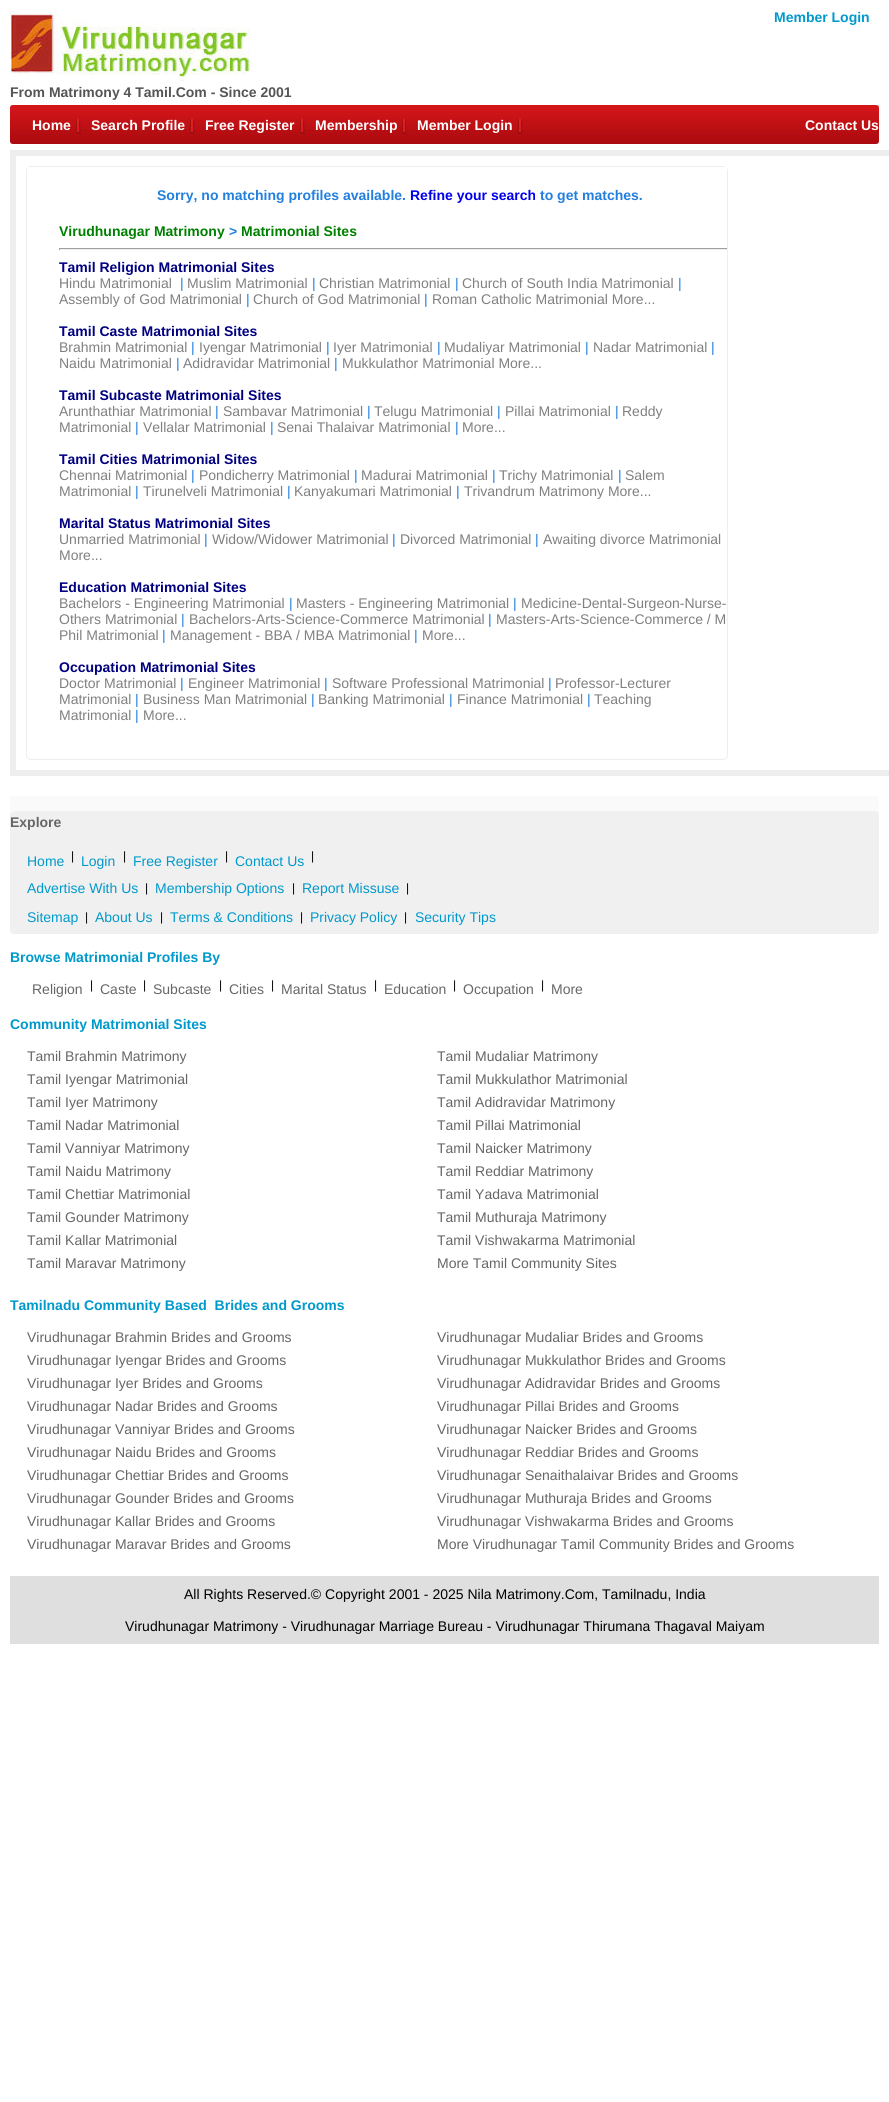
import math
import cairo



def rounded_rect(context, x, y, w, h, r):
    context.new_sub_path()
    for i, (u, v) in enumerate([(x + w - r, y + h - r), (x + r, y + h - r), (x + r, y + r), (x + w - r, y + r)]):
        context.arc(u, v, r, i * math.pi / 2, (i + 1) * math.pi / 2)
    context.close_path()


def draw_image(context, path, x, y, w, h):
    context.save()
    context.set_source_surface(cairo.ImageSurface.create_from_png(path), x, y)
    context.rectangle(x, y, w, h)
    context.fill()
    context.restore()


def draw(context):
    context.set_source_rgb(1, 1, 1)
    context.paint()
    draw_image(context, "images/1.png", 10, 11, 240, 70)
    draw_image(context, "images/2.png", 10, 105, 869, 39)
    draw_image(context, "images/3.png", 75, 119, 6, 16)
    draw_image(context, "images/3.png", 189, 119, 6, 16)
    draw_image(context, "images/3.png", 299, 119, 6, 16)
    draw_image(context, "images/3.png", 401, 119, 6, 16)
    draw_image(context, "images/3.png", 517, 119, 6, 16)
    context.rectangle(13, 153, 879, 620)
    context.set_source_rgb(238 / 255, 238 / 255, 238 / 255)
    context.set_line_width(6)
    context.stroke()
    rounded_rect(context, 26.5, 166.5, 701, 593, 4.5)
    context.set_line_width(1)
    context.stroke()
    context.set_source_rgb(1, 1, 1)
    context.rectangle(27, 167, 700, 3)
    context.fill()
    context.set_source_rgb(159 / 255, 159 / 255, 159 / 255)
    context.rectangle(59, 248, 669, 1)
    context.fill()
    context.set_source_rgb(238 / 255, 238 / 255, 238 / 255)
    context.rectangle(727, 248, 1, 2)
    context.fill()
    context.rectangle(59, 249, 669, 1)
    context.fill()
    context.set_source_rgb(159 / 255, 159 / 255, 159 / 255)
    context.rectangle(59, 248, 1, 2)
    context.fill()
    context.set_source_rgb(250 / 255, 250 / 255, 250 / 255)
    context.rectangle(10, 796, 869, 138)
    context.fill()
    context.set_source_rgb(240 / 255, 240 / 255, 240 / 255)
    rounded_rect(context, 10, 811, 869, 123, 5)
    context.fill()
    context.set_source_rgb(224 / 255, 223 / 255, 223 / 255)
    context.rectangle(10, 1576, 869, 68)
    context.fill()
    context.select_font_face("Liberation Sans", cairo.FontSlant.NORMAL, cairo.FontWeight.BOLD)
    context.set_font_size(14)
    context.set_source_rgb(0, 153 / 255, 204 / 255)
    context.move_to(774, 22)
    context.show_text("Member Login")
    context.set_source_rgb(85 / 255, 85 / 255, 85 / 255)
    context.move_to(10, 97)
    context.show_text("From Matrimony 4 Tamil.Com - Since 2001")
    context.set_source_rgb(1, 1, 1)
    context.move_to(32, 130)
    context.show_text("Home")
    context.move_to(91, 130)
    context.show_text("Search Profile")
    context.move_to(205, 130)
    context.show_text("Free Register")
    context.move_to(315, 130)
    context.show_text("Membership")
    context.move_to(417, 130)
    context.show_text("Member Login")
    context.move_to(805, 130)
    context.show_text("Contact Us")
    context.set_source_rgb(34 / 255, 127 / 255, 222 / 255)
    context.move_to(157, 200)
    context.show_text("Sorry, no matching profiles available.")
    context.set_source_rgb(0, 0, 238 / 255)
    context.move_to(410, 200)
    context.show_text("Refine your search")
    context.set_source_rgb(34 / 255, 127 / 255, 222 / 255)
    context.move_to(540, 200)
    context.show_text("to get matches.")
    context.set_source_rgb(0, 128 / 255, 0)
    context.move_to(59, 236)
    context.show_text("Virudhunagar Matrimony")
    context.set_source_rgb(34 / 255, 127 / 255, 222 / 255)
    context.move_to(229, 236)
    context.show_text(">")
    context.set_source_rgb(0, 128 / 255, 0)
    context.move_to(241, 236)
    context.show_text("Matrimonial Sites")
    context.set_source_rgb(0, 0, 128 / 255)
    context.move_to(59, 272)
    context.show_text("Tamil Religion Matrimonial Sites")
    context.select_font_face("Liberation Sans")
    context.set_source_rgb(128 / 255, 128 / 255, 128 / 255)
    context.move_to(59, 288)
    context.show_text("Hindu Matrimonial")
    context.set_source_rgb(34 / 255, 127 / 255, 222 / 255)
    context.move_to(180, 288)
    context.show_text("|")
    context.set_source_rgb(128 / 255, 128 / 255, 128 / 255)
    context.move_to(187, 288)
    context.show_text("Muslim Matrimonial")
    context.set_source_rgb(34 / 255, 127 / 255, 222 / 255)
    context.move_to(312, 288)
    context.show_text("|")
    context.set_source_rgb(128 / 255, 128 / 255, 128 / 255)
    context.move_to(319, 288)
    context.show_text("Christian Matrimonial")
    context.set_source_rgb(34 / 255, 127 / 255, 222 / 255)
    context.move_to(455, 288)
    context.show_text("|")
    context.set_source_rgb(128 / 255, 128 / 255, 128 / 255)
    context.move_to(462, 288)
    context.show_text("Church of South India Matrimonial")
    context.set_source_rgb(34 / 255, 127 / 255, 222 / 255)
    context.move_to(678, 288)
    context.show_text("|")
    context.set_source_rgb(128 / 255, 128 / 255, 128 / 255)
    context.move_to(59, 304)
    context.show_text("Assembly of God Matrimonial")
    context.set_source_rgb(34 / 255, 127 / 255, 222 / 255)
    context.move_to(246, 304)
    context.show_text("|")
    context.set_source_rgb(128 / 255, 128 / 255, 128 / 255)
    context.move_to(253, 304)
    context.show_text("Church of God Matrimonial")
    context.set_source_rgb(34 / 255, 127 / 255, 222 / 255)
    context.move_to(424, 304)
    context.show_text("|")
    context.set_source_rgb(128 / 255, 128 / 255, 128 / 255)
    context.move_to(432, 304)
    context.show_text("Roman Catholic Matrimonial More...")
    context.select_font_face("Liberation Sans", cairo.FontSlant.NORMAL, cairo.FontWeight.BOLD)
    context.set_source_rgb(0, 0, 128 / 255)
    context.move_to(59, 336)
    context.show_text("Tamil Caste Matrimonial Sites")
    context.select_font_face("Liberation Sans")
    context.set_source_rgb(128 / 255, 128 / 255, 128 / 255)
    context.move_to(59, 352)
    context.show_text("Brahmin Matrimonial")
    context.set_source_rgb(34 / 255, 127 / 255, 222 / 255)
    context.move_to(191, 352)
    context.show_text("|")
    context.set_source_rgb(128 / 255, 128 / 255, 128 / 255)
    context.move_to(199, 352)
    context.show_text("Iyengar Matrimonial")
    context.set_source_rgb(34 / 255, 127 / 255, 222 / 255)
    context.move_to(326, 352)
    context.show_text("|")
    context.set_source_rgb(128 / 255, 128 / 255, 128 / 255)
    context.move_to(333, 352)
    context.show_text("Iyer Matrimonial")
    context.set_source_rgb(34 / 255, 127 / 255, 222 / 255)
    context.move_to(437, 352)
    context.show_text("|")
    context.set_source_rgb(128 / 255, 128 / 255, 128 / 255)
    context.move_to(444, 352)
    context.show_text("Mudaliyar Matrimonial")
    context.set_source_rgb(34 / 255, 127 / 255, 222 / 255)
    context.move_to(585, 352)
    context.show_text("|")
    context.set_source_rgb(128 / 255, 128 / 255, 128 / 255)
    context.move_to(593, 352)
    context.show_text("Nadar Matrimonial")
    context.set_source_rgb(34 / 255, 127 / 255, 222 / 255)
    context.move_to(711, 352)
    context.show_text("|")
    context.set_source_rgb(128 / 255, 128 / 255, 128 / 255)
    context.move_to(59, 368)
    context.show_text("Naidu Matrimonial")
    context.set_source_rgb(34 / 255, 127 / 255, 222 / 255)
    context.move_to(176, 368)
    context.show_text("|")
    context.set_source_rgb(128 / 255, 128 / 255, 128 / 255)
    context.move_to(183, 368)
    context.show_text("Adidravidar Matrimonial")
    context.set_source_rgb(34 / 255, 127 / 255, 222 / 255)
    context.move_to(334, 368)
    context.show_text("|")
    context.set_source_rgb(128 / 255, 128 / 255, 128 / 255)
    context.move_to(342, 368)
    context.show_text("Mukkulathor Matrimonial More...")
    context.select_font_face("Liberation Sans", cairo.FontSlant.NORMAL, cairo.FontWeight.BOLD)
    context.set_source_rgb(0, 0, 128 / 255)
    context.move_to(59, 400)
    context.show_text("Tamil Subcaste Matrimonial Sites")
    context.select_font_face("Liberation Sans")
    context.set_source_rgb(128 / 255, 128 / 255, 128 / 255)
    context.move_to(59, 416)
    context.show_text("Arunthathiar Matrimonial")
    context.set_source_rgb(34 / 255, 127 / 255, 222 / 255)
    context.move_to(215, 416)
    context.show_text("|")
    context.set_source_rgb(128 / 255, 128 / 255, 128 / 255)
    context.move_to(223, 416)
    context.show_text("Sambavar Matrimonial")
    context.set_source_rgb(34 / 255, 127 / 255, 222 / 255)
    context.move_to(367, 416)
    context.show_text("|")
    context.set_source_rgb(128 / 255, 128 / 255, 128 / 255)
    context.move_to(374, 416)
    context.show_text("Telugu Matrimonial")
    context.set_source_rgb(34 / 255, 127 / 255, 222 / 255)
    context.move_to(497, 416)
    context.show_text("|")
    context.set_source_rgb(128 / 255, 128 / 255, 128 / 255)
    context.move_to(505, 416)
    context.show_text("Pillai Matrimonial")
    context.set_source_rgb(34 / 255, 127 / 255, 222 / 255)
    context.move_to(615, 416)
    context.show_text("|")
    context.set_source_rgb(128 / 255, 128 / 255, 128 / 255)
    context.move_to(622, 416)
    context.show_text("Reddy")
    context.move_to(59, 432)
    context.show_text("Matrimonial")
    context.set_source_rgb(34 / 255, 127 / 255, 222 / 255)
    context.move_to(135, 432)
    context.show_text("|")
    context.set_source_rgb(128 / 255, 128 / 255, 128 / 255)
    context.move_to(143, 432)
    context.show_text("Vellalar Matrimonial")
    context.set_source_rgb(34 / 255, 127 / 255, 222 / 255)
    context.move_to(270, 432)
    context.show_text("|")
    context.set_source_rgb(128 / 255, 128 / 255, 128 / 255)
    context.move_to(277, 432)
    context.show_text("Senai Thalaivar Matrimonial")
    context.set_source_rgb(34 / 255, 127 / 255, 222 / 255)
    context.move_to(455, 432)
    context.show_text("|")
    context.set_source_rgb(128 / 255, 128 / 255, 128 / 255)
    context.move_to(462, 432)
    context.show_text("More...")
    context.select_font_face("Liberation Sans", cairo.FontSlant.NORMAL, cairo.FontWeight.BOLD)
    context.set_source_rgb(0, 0, 128 / 255)
    context.move_to(59, 464)
    context.show_text("Tamil Cities Matrimonial Sites")
    context.select_font_face("Liberation Sans")
    context.set_source_rgb(128 / 255, 128 / 255, 128 / 255)
    context.move_to(59, 480)
    context.show_text("Chennai Matrimonial")
    context.set_source_rgb(34 / 255, 127 / 255, 222 / 255)
    context.move_to(191, 480)
    context.show_text("|")
    context.set_source_rgb(128 / 255, 128 / 255, 128 / 255)
    context.move_to(199, 480)
    context.show_text("Pondicherry Matrimonial")
    context.set_source_rgb(34 / 255, 127 / 255, 222 / 255)
    context.move_to(354, 480)
    context.show_text("|")
    context.set_source_rgb(128 / 255, 128 / 255, 128 / 255)
    context.move_to(361, 480)
    context.show_text("Madurai Matrimonial")
    context.set_source_rgb(34 / 255, 127 / 255, 222 / 255)
    context.move_to(492, 480)
    context.show_text("|")
    context.set_source_rgb(128 / 255, 128 / 255, 128 / 255)
    context.move_to(499, 480)
    context.show_text("Trichy Matrimonial")
    context.set_source_rgb(34 / 255, 127 / 255, 222 / 255)
    context.move_to(618, 480)
    context.show_text("|")
    context.set_source_rgb(128 / 255, 128 / 255, 128 / 255)
    context.move_to(625, 480)
    context.show_text("Salem")
    context.move_to(59, 496)
    context.show_text("Matrimonial")
    context.set_source_rgb(34 / 255, 127 / 255, 222 / 255)
    context.move_to(135, 496)
    context.show_text("|")
    context.set_source_rgb(128 / 255, 128 / 255, 128 / 255)
    context.move_to(143, 496)
    context.show_text("Tirunelveli Matrimonial")
    context.set_source_rgb(34 / 255, 127 / 255, 222 / 255)
    context.move_to(287, 496)
    context.show_text("|")
    context.set_source_rgb(128 / 255, 128 / 255, 128 / 255)
    context.move_to(294, 496)
    context.show_text("Kanyakumari Matrimonial")
    context.set_source_rgb(34 / 255, 127 / 255, 222 / 255)
    context.move_to(456, 496)
    context.show_text("|")
    context.set_source_rgb(128 / 255, 128 / 255, 128 / 255)
    context.move_to(464, 496)
    context.show_text("Trivandrum Matrimony More...")
    context.select_font_face("Liberation Sans", cairo.FontSlant.NORMAL, cairo.FontWeight.BOLD)
    context.set_source_rgb(0, 0, 128 / 255)
    context.move_to(59, 528)
    context.show_text("Marital Status Matrimonial Sites")
    context.select_font_face("Liberation Sans")
    context.set_source_rgb(128 / 255, 128 / 255, 128 / 255)
    context.move_to(59, 544)
    context.show_text("Unmarried Matrimonial")
    context.set_source_rgb(34 / 255, 127 / 255, 222 / 255)
    context.move_to(204, 544)
    context.show_text("|")
    context.set_source_rgb(128 / 255, 128 / 255, 128 / 255)
    context.move_to(212, 544)
    context.show_text("Widow/Widower Matrimonial")
    context.set_source_rgb(34 / 255, 127 / 255, 222 / 255)
    context.move_to(392, 544)
    context.show_text("|")
    context.set_source_rgb(128 / 255, 128 / 255, 128 / 255)
    context.move_to(400, 544)
    context.show_text("Divorced Matrimonial")
    context.set_source_rgb(34 / 255, 127 / 255, 222 / 255)
    context.move_to(535, 544)
    context.show_text("|")
    context.set_source_rgb(128 / 255, 128 / 255, 128 / 255)
    context.move_to(543, 544)
    context.show_text("Awaiting divorce Matrimonial")
    context.move_to(59, 560)
    context.show_text("More...")
    context.select_font_face("Liberation Sans", cairo.FontSlant.NORMAL, cairo.FontWeight.BOLD)
    context.set_source_rgb(0, 0, 128 / 255)
    context.move_to(59, 592)
    context.show_text("Education Matrimonial Sites")
    context.select_font_face("Liberation Sans")
    context.set_source_rgb(128 / 255, 128 / 255, 128 / 255)
    context.move_to(59, 608)
    context.show_text("Bachelors - Engineering Matrimonial")
    context.set_source_rgb(34 / 255, 127 / 255, 222 / 255)
    context.move_to(289, 608)
    context.show_text("|")
    context.set_source_rgb(128 / 255, 128 / 255, 128 / 255)
    context.move_to(296, 608)
    context.show_text("Masters - Engineering Matrimonial")
    context.set_source_rgb(34 / 255, 127 / 255, 222 / 255)
    context.move_to(513, 608)
    context.show_text("|")
    context.set_source_rgb(128 / 255, 128 / 255, 128 / 255)
    context.move_to(521, 608)
    context.show_text("Medicine-Dental-Surgeon-Nurse-")
    context.move_to(59, 624)
    context.show_text("Others Matrimonial")
    context.set_source_rgb(34 / 255, 127 / 255, 222 / 255)
    context.move_to(181, 624)
    context.show_text("|")
    context.set_source_rgb(128 / 255, 128 / 255, 128 / 255)
    context.move_to(189, 624)
    context.show_text("Bachelors-Arts-Science-Commerce Matrimonial")
    context.set_source_rgb(34 / 255, 127 / 255, 222 / 255)
    context.move_to(488, 624)
    context.show_text("|")
    context.set_source_rgb(128 / 255, 128 / 255, 128 / 255)
    context.move_to(496, 624)
    context.show_text("Masters-Arts-Science-Commerce / M")
    context.move_to(59, 640)
    context.show_text("Phil Matrimonial")
    context.set_source_rgb(34 / 255, 127 / 255, 222 / 255)
    context.move_to(162, 640)
    context.show_text("|")
    context.set_source_rgb(128 / 255, 128 / 255, 128 / 255)
    context.move_to(170, 640)
    context.show_text("Management - BBA / MBA Matrimonial")
    context.set_source_rgb(34 / 255, 127 / 255, 222 / 255)
    context.move_to(414, 640)
    context.show_text("|")
    context.set_source_rgb(128 / 255, 128 / 255, 128 / 255)
    context.move_to(422, 640)
    context.show_text("More...")
    context.select_font_face("Liberation Sans", cairo.FontSlant.NORMAL, cairo.FontWeight.BOLD)
    context.set_source_rgb(0, 0, 128 / 255)
    context.move_to(59, 672)
    context.show_text("Occupation Matrimonial Sites")
    context.select_font_face("Liberation Sans")
    context.set_source_rgb(128 / 255, 128 / 255, 128 / 255)
    context.move_to(59, 688)
    context.show_text("Doctor Matrimonial")
    context.set_source_rgb(34 / 255, 127 / 255, 222 / 255)
    context.move_to(180, 688)
    context.show_text("|")
    context.set_source_rgb(128 / 255, 128 / 255, 128 / 255)
    context.move_to(188, 688)
    context.show_text("Engineer Matrimonial")
    context.set_source_rgb(34 / 255, 127 / 255, 222 / 255)
    context.move_to(324, 688)
    context.show_text("|")
    context.set_source_rgb(128 / 255, 128 / 255, 128 / 255)
    context.move_to(332, 688)
    context.show_text("Software Professional Matrimonial")
    context.set_source_rgb(34 / 255, 127 / 255, 222 / 255)
    context.move_to(548, 688)
    context.show_text("|")
    context.set_source_rgb(128 / 255, 128 / 255, 128 / 255)
    context.move_to(555, 688)
    context.show_text("Professor-Lecturer")
    context.move_to(59, 704)
    context.show_text("Matrimonial")
    context.set_source_rgb(34 / 255, 127 / 255, 222 / 255)
    context.move_to(135, 704)
    context.show_text("|")
    context.set_source_rgb(128 / 255, 128 / 255, 128 / 255)
    context.move_to(143, 704)
    context.show_text("Business Man Matrimonial")
    context.set_source_rgb(34 / 255, 127 / 255, 222 / 255)
    context.move_to(311, 704)
    context.show_text("|")
    context.set_source_rgb(128 / 255, 128 / 255, 128 / 255)
    context.move_to(318, 704)
    context.show_text("Banking Matrimonial")
    context.set_source_rgb(34 / 255, 127 / 255, 222 / 255)
    context.move_to(449, 704)
    context.show_text("|")
    context.set_source_rgb(128 / 255, 128 / 255, 128 / 255)
    context.move_to(457, 704)
    context.show_text("Finance Matrimonial")
    context.set_source_rgb(34 / 255, 127 / 255, 222 / 255)
    context.move_to(587, 704)
    context.show_text("|")
    context.set_source_rgb(128 / 255, 128 / 255, 128 / 255)
    context.move_to(594, 704)
    context.show_text("Teaching")
    context.move_to(59, 720)
    context.show_text("Matrimonial")
    context.set_source_rgb(34 / 255, 127 / 255, 222 / 255)
    context.move_to(135, 720)
    context.show_text("|")
    context.set_source_rgb(128 / 255, 128 / 255, 128 / 255)
    context.move_to(143, 720)
    context.show_text("More...")
    context.select_font_face("Liberation Sans", cairo.FontSlant.NORMAL, cairo.FontWeight.BOLD)
    context.set_source_rgb(102 / 255, 102 / 255, 102 / 255)
    context.move_to(10, 827)
    context.show_text("Explore")
    context.select_font_face("Liberation Sans")
    context.set_source_rgb(0, 153 / 255, 204 / 255)
    context.move_to(27, 866)
    context.show_text("Home")
    context.set_font_size(12)
    context.set_source_rgb(0, 0, 0)
    context.move_to(71, 860)
    context.show_text("|")
    context.set_font_size(14)
    context.set_source_rgb(0, 153 / 255, 204 / 255)
    context.move_to(81, 866)
    context.show_text("Login")
    context.set_font_size(12)
    context.set_source_rgb(0, 0, 0)
    context.move_to(123, 860)
    context.show_text("|")
    context.set_font_size(14)
    context.set_source_rgb(0, 153 / 255, 204 / 255)
    context.move_to(133, 866)
    context.show_text("Free Register")
    context.set_font_size(12)
    context.set_source_rgb(0, 0, 0)
    context.move_to(225, 860)
    context.show_text("|")
    context.set_font_size(14)
    context.set_source_rgb(0, 153 / 255, 204 / 255)
    context.move_to(235, 866)
    context.show_text("Contact Us")
    context.set_font_size(12)
    context.set_source_rgb(0, 0, 0)
    context.move_to(311, 860)
    context.show_text("|")
    context.set_font_size(14)
    context.set_source_rgb(0, 153 / 255, 204 / 255)
    context.move_to(27, 893)
    context.show_text("Advertise With Us")
    context.set_font_size(12)
    context.set_source_rgb(0, 0, 0)
    context.move_to(145, 892)
    context.show_text("|")
    context.set_font_size(14)
    context.set_source_rgb(0, 153 / 255, 204 / 255)
    context.move_to(155, 893)
    context.show_text("Membership Options")
    context.set_font_size(12)
    context.set_source_rgb(0, 0, 0)
    context.move_to(292, 892)
    context.show_text("|")
    context.set_font_size(14)
    context.set_source_rgb(0, 153 / 255, 204 / 255)
    context.move_to(302, 893)
    context.show_text("Report Missuse")
    context.set_font_size(12)
    context.set_source_rgb(0, 0, 0)
    context.move_to(406, 892)
    context.show_text("|")
    context.set_font_size(14)
    context.set_source_rgb(0, 153 / 255, 204 / 255)
    context.move_to(27, 922)
    context.show_text("Sitemap")
    context.set_font_size(12)
    context.set_source_rgb(0, 0, 0)
    context.move_to(85, 921)
    context.show_text("|")
    context.set_font_size(14)
    context.set_source_rgb(0, 153 / 255, 204 / 255)
    context.move_to(95, 922)
    context.show_text("About Us")
    context.set_font_size(12)
    context.set_source_rgb(0, 0, 0)
    context.move_to(160, 921)
    context.show_text("|")
    context.set_font_size(14)
    context.set_source_rgb(0, 153 / 255, 204 / 255)
    context.move_to(170, 922)
    context.show_text("Terms & Conditions")
    context.set_font_size(12)
    context.set_source_rgb(0, 0, 0)
    context.move_to(300, 921)
    context.show_text("|")
    context.set_font_size(14)
    context.set_source_rgb(0, 153 / 255, 204 / 255)
    context.move_to(310, 922)
    context.show_text("Privacy Policy")
    context.set_font_size(12)
    context.set_source_rgb(0, 0, 0)
    context.move_to(404, 921)
    context.show_text("|")
    context.set_font_size(14)
    context.set_source_rgb(0, 153 / 255, 204 / 255)
    context.move_to(415, 922)
    context.show_text("Security Tips")
    context.select_font_face("Liberation Sans", cairo.FontSlant.NORMAL, cairo.FontWeight.BOLD)
    context.move_to(10, 962)
    context.show_text("Browse Matrimonial Profiles By")
    context.select_font_face("Liberation Sans")
    context.set_source_rgb(102 / 255, 102 / 255, 102 / 255)
    context.move_to(32, 994)
    context.show_text("Religion")
    context.set_font_size(12)
    context.set_source_rgb(0, 0, 0)
    context.move_to(90, 989)
    context.show_text("|")
    context.set_font_size(14)
    context.set_source_rgb(102 / 255, 102 / 255, 102 / 255)
    context.move_to(100, 994)
    context.show_text("Caste")
    context.set_font_size(12)
    context.set_source_rgb(0, 0, 0)
    context.move_to(143, 989)
    context.show_text("|")
    context.set_font_size(14)
    context.set_source_rgb(102 / 255, 102 / 255, 102 / 255)
    context.move_to(153, 994)
    context.show_text("Subcaste")
    context.set_font_size(12)
    context.set_source_rgb(0, 0, 0)
    context.move_to(219, 989)
    context.show_text("|")
    context.set_font_size(14)
    context.set_source_rgb(102 / 255, 102 / 255, 102 / 255)
    context.move_to(229, 994)
    context.show_text("Cities")
    context.set_font_size(12)
    context.set_source_rgb(0, 0, 0)
    context.move_to(271, 989)
    context.show_text("|")
    context.set_font_size(14)
    context.set_source_rgb(102 / 255, 102 / 255, 102 / 255)
    context.move_to(281, 994)
    context.show_text("Marital Status")
    context.set_font_size(12)
    context.set_source_rgb(0, 0, 0)
    context.move_to(374, 989)
    context.show_text("|")
    context.set_font_size(14)
    context.set_source_rgb(102 / 255, 102 / 255, 102 / 255)
    context.move_to(384, 994)
    context.show_text("Education")
    context.set_font_size(12)
    context.set_source_rgb(0, 0, 0)
    context.move_to(453, 989)
    context.show_text("|")
    context.set_font_size(14)
    context.set_source_rgb(102 / 255, 102 / 255, 102 / 255)
    context.move_to(463, 994)
    context.show_text("Occupation")
    context.set_font_size(12)
    context.set_source_rgb(0, 0, 0)
    context.move_to(541, 989)
    context.show_text("|")
    context.set_font_size(14)
    context.set_source_rgb(102 / 255, 102 / 255, 102 / 255)
    context.move_to(551, 994)
    context.show_text("More")
    context.select_font_face("Liberation Sans", cairo.FontSlant.NORMAL, cairo.FontWeight.BOLD)
    context.set_source_rgb(0, 153 / 255, 204 / 255)
    context.move_to(10, 1029)
    context.show_text("Community Matrimonial Sites")
    context.select_font_face("Liberation Sans")
    context.set_source_rgb(102 / 255, 102 / 255, 102 / 255)
    context.move_to(27, 1061)
    context.show_text("Tamil Brahmin Matrimony")
    context.move_to(27, 1084)
    context.show_text("Tamil Iyengar Matrimonial")
    context.move_to(27, 1107)
    context.show_text("Tamil Iyer Matrimony")
    context.move_to(27, 1130)
    context.show_text("Tamil Nadar Matrimonial")
    context.move_to(27, 1153)
    context.show_text("Tamil Vanniyar Matrimony")
    context.move_to(27, 1176)
    context.show_text("Tamil Naidu Matrimony")
    context.move_to(27, 1199)
    context.show_text("Tamil Chettiar Matrimonial")
    context.move_to(27, 1222)
    context.show_text("Tamil Gounder Matrimony")
    context.move_to(27, 1245)
    context.show_text("Tamil Kallar Matrimonial")
    context.move_to(27, 1268)
    context.show_text("Tamil Maravar Matrimony")
    context.move_to(437, 1061)
    context.show_text("Tamil Mudaliar Matrimony")
    context.move_to(437, 1084)
    context.show_text("Tamil Mukkulathor Matrimonial")
    context.move_to(437, 1107)
    context.show_text("Tamil Adidravidar Matrimony")
    context.move_to(437, 1130)
    context.show_text("Tamil Pillai Matrimonial")
    context.move_to(437, 1153)
    context.show_text("Tamil Naicker Matrimony")
    context.move_to(437, 1176)
    context.show_text("Tamil Reddiar Matrimony")
    context.move_to(437, 1199)
    context.show_text("Tamil Yadava Matrimonial")
    context.move_to(437, 1222)
    context.show_text("Tamil Muthuraja Matrimony")
    context.move_to(437, 1245)
    context.show_text("Tamil Vishwakarma Matrimonial")
    context.move_to(437, 1268)
    context.show_text("More Tamil Community Sites")
    context.select_font_face("Liberation Sans", cairo.FontSlant.NORMAL, cairo.FontWeight.BOLD)
    context.set_source_rgb(0, 153 / 255, 204 / 255)
    context.move_to(10, 1310)
    context.show_text("Tamilnadu Community Based  Brides and Grooms")
    context.select_font_face("Liberation Sans")
    context.set_source_rgb(102 / 255, 102 / 255, 102 / 255)
    context.move_to(27, 1342)
    context.show_text("Virudhunagar Brahmin Brides and Grooms")
    context.move_to(27, 1365)
    context.show_text("Virudhunagar Iyengar Brides and Grooms")
    context.move_to(27, 1388)
    context.show_text("Virudhunagar Iyer Brides and Grooms")
    context.move_to(27, 1411)
    context.show_text("Virudhunagar Nadar Brides and Grooms")
    context.move_to(27, 1434)
    context.show_text("Virudhunagar Vanniyar Brides and Grooms")
    context.move_to(27, 1457)
    context.show_text("Virudhunagar Naidu Brides and Grooms")
    context.move_to(27, 1480)
    context.show_text("Virudhunagar Chettiar Brides and Grooms")
    context.move_to(27, 1503)
    context.show_text("Virudhunagar Gounder Brides and Grooms")
    context.move_to(27, 1526)
    context.show_text("Virudhunagar Kallar Brides and Grooms")
    context.move_to(27, 1549)
    context.show_text("Virudhunagar Maravar Brides and Grooms")
    context.move_to(437, 1342)
    context.show_text("Virudhunagar Mudaliar Brides and Grooms")
    context.move_to(437, 1365)
    context.show_text("Virudhunagar Mukkulathor Brides and Grooms")
    context.move_to(437, 1388)
    context.show_text("Virudhunagar Adidravidar Brides and Grooms")
    context.move_to(437, 1411)
    context.show_text("Virudhunagar Pillai Brides and Grooms")
    context.move_to(437, 1434)
    context.show_text("Virudhunagar Naicker Brides and Grooms")
    context.move_to(437, 1457)
    context.show_text("Virudhunagar Reddiar Brides and Grooms")
    context.move_to(437, 1480)
    context.show_text("Virudhunagar Senaithalaivar Brides and Grooms")
    context.move_to(437, 1503)
    context.show_text("Virudhunagar Muthuraja Brides and Grooms")
    context.move_to(437, 1526)
    context.show_text("Virudhunagar Vishwakarma Brides and Grooms")
    context.move_to(437, 1549)
    context.show_text("More Virudhunagar Tamil Community Brides and Grooms")
    context.set_source_rgb(0, 0, 0)
    context.move_to(184, 1599)
    context.show_text("All Rights Reserved.© Copyright 2001 - 2025 Nila Matrimony.Com, Tamilnadu, India")
    context.move_to(125, 1631)
    context.show_text("Virudhunagar Matrimony - Virudhunagar Marriage Bureau - Virudhunagar Thirumana Thagaval Maiyam")


surface = cairo.ImageSurface(cairo.Format.RGB24, 889, 2102)
context = cairo.Context(surface)
options = cairo.FontOptions()
options.set_hint_metrics(cairo.HintMetrics.OFF)
options.set_hint_style(cairo.HintStyle.NONE)
context.set_font_options(options)
context.set_miter_limit(4)
draw(context)
surface.write_to_png("out.png")
